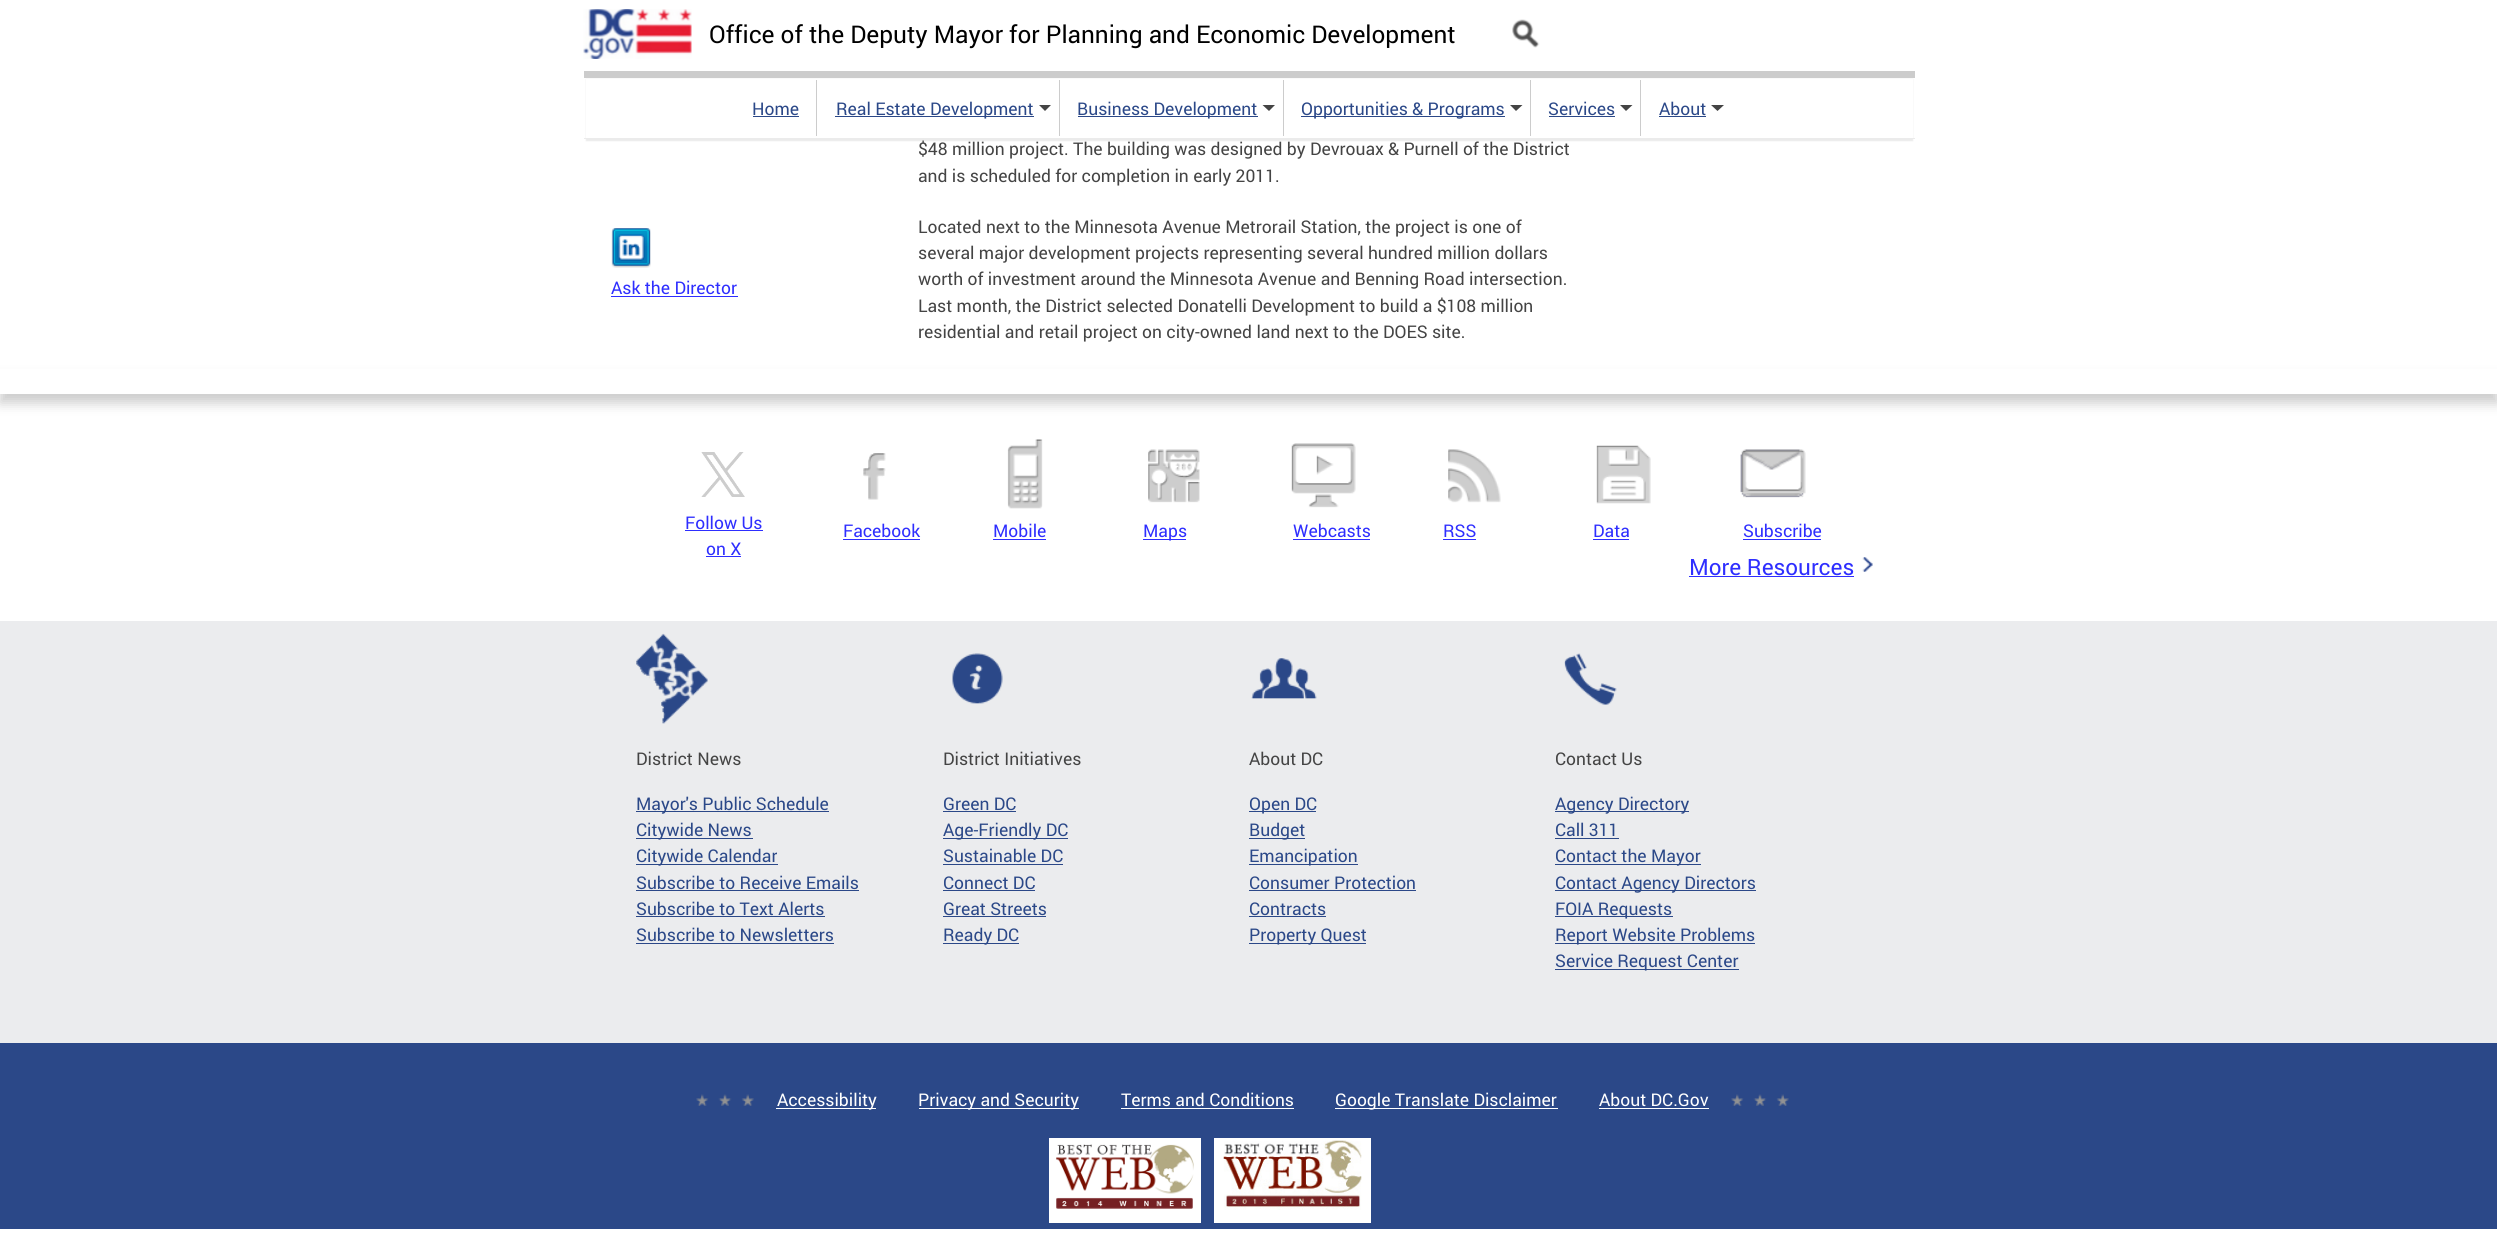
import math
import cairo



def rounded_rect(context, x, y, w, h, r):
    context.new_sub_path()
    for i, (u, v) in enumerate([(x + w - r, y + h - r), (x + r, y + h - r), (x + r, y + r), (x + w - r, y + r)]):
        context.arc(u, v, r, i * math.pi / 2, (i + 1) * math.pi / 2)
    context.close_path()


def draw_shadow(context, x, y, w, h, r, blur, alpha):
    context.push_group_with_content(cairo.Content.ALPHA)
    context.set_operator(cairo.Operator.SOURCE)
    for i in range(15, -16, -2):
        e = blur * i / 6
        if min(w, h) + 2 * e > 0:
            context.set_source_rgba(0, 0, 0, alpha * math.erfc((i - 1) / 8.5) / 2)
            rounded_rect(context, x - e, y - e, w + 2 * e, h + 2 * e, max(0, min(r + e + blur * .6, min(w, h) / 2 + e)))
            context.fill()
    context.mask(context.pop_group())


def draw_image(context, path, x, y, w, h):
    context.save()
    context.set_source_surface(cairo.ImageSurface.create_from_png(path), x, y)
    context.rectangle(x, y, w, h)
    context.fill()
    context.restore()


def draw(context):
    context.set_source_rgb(1, 1, 1)
    context.paint()
    draw_image(context, "images/1.png", 583, 9, 109, 50)
    draw_image(context, "images/2.png", 1512, 19, 28, 29)
    context.set_source_rgb(235 / 255, 235 / 255, 235 / 255)
    draw_shadow(context, 586, 79, 1327, 62, 0, 0.5, 1)
    context.set_source_rgb(1, 1, 1)
    context.rectangle(586, 79, 1327, 59)
    context.fill()
    context.set_source_rgb(204 / 255, 204 / 255, 204 / 255)
    context.rectangle(584, 71, 1331, 7)
    context.fill()
    context.set_source_rgb(235 / 255, 235 / 255, 235 / 255)
    context.rectangle(584, 138, 1331, 1)
    context.fill()
    context.set_source_rgb(204 / 255, 204 / 255, 204 / 255)
    context.rectangle(816, 80, 1, 56)
    context.fill()
    context.set_source_rgb(43 / 255, 72 / 255, 136 / 255)
    context.rectangle(753, 116, 46, 1)
    context.fill()
    context.set_source_rgb(204 / 255, 204 / 255, 204 / 255)
    context.rectangle(1059, 80, 1, 56)
    context.fill()
    context.set_source_rgb(43 / 255, 72 / 255, 136 / 255)
    context.rectangle(835, 116, 199, 1)
    context.fill()
    context.set_source_rgb(68 / 255, 68 / 255, 68 / 255)
    context.new_path()
    context.move_to(1039, 105)
    context.line_to(1051, 105)
    context.line_to(1045, 111)
    context.close_path()
    context.fill()
    context.set_source_rgb(204 / 255, 204 / 255, 204 / 255)
    context.rectangle(1283, 80, 1, 56)
    context.fill()
    context.set_source_rgb(43 / 255, 72 / 255, 136 / 255)
    context.rectangle(1078, 116, 180, 1)
    context.fill()
    context.set_source_rgb(68 / 255, 68 / 255, 68 / 255)
    context.new_path()
    context.move_to(1262.5, 105)
    context.line_to(1275, 105)
    context.line_to(1269, 111)
    context.close_path()
    context.fill()
    context.set_source_rgb(204 / 255, 204 / 255, 204 / 255)
    context.rectangle(1530, 80, 1, 56)
    context.fill()
    context.set_source_rgb(43 / 255, 72 / 255, 136 / 255)
    context.rectangle(1301, 116, 204, 1)
    context.fill()
    context.set_source_rgb(68 / 255, 68 / 255, 68 / 255)
    context.new_path()
    context.move_to(1510, 105)
    context.line_to(1522.5, 105)
    context.line_to(1516, 111)
    context.close_path()
    context.fill()
    context.set_source_rgb(204 / 255, 204 / 255, 204 / 255)
    context.rectangle(1640, 80, 1, 56)
    context.fill()
    context.set_source_rgb(43 / 255, 72 / 255, 136 / 255)
    context.rectangle(1549, 116, 66, 1)
    context.fill()
    context.set_source_rgb(68 / 255, 68 / 255, 68 / 255)
    context.new_path()
    context.move_to(1620, 105)
    context.line_to(1632.5, 105)
    context.line_to(1626, 111)
    context.close_path()
    context.fill()
    context.set_source_rgb(43 / 255, 72 / 255, 136 / 255)
    context.rectangle(1659, 116, 47, 1)
    context.fill()
    context.set_source_rgb(68 / 255, 68 / 255, 68 / 255)
    context.new_path()
    context.move_to(1711, 105)
    context.line_to(1724, 105)
    context.line_to(1717.5, 111)
    context.close_path()
    context.fill()
    draw_image(context, "images/3.png", 611, 228, 40, 40)
    context.set_source_rgb(46 / 255, 46 / 255, 1)
    context.rectangle(611, 296, 127, 1)
    context.fill()
    context.save()
    context.set_fill_rule(cairo.FillRule.EVEN_ODD)
    context.new_path()
    context.move_to(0, 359)
    context.line_to(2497, 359)
    context.line_to(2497, 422)
    context.line_to(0, 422)
    context.close_path()
    context.move_to(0, 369)
    context.line_to(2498, 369)
    context.line_to(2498, 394)
    context.line_to(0, 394)
    context.close_path()
    context.clip()
    context.set_source_rgb(204 / 255, 204 / 255, 204 / 255)
    draw_shadow(context, 0, 378, 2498, 25, 0, 6, 1)
    context.restore()
    draw_image(context, "images/4.png", 701, 452, 44, 45)
    context.rectangle(685, 530, 78, 1)
    context.fill()
    context.rectangle(706, 556, 35, 1)
    context.fill()
    draw_image(context, "images/5.png", 863, 453, 23, 47)
    context.rectangle(843, 539, 77, 1)
    context.fill()
    draw_image(context, "images/6.png", 1007, 439, 36, 70)
    context.rectangle(993, 539, 53, 1)
    context.fill()
    draw_image(context, "images/7.png", 1148, 449, 52, 54)
    context.rectangle(1143, 539, 43, 1)
    context.fill()
    draw_image(context, "images/8.png", 1291, 443, 65, 65)
    context.rectangle(1293, 539, 77, 1)
    context.fill()
    draw_image(context, "images/9.png", 1448, 449, 53, 54)
    context.rectangle(1443, 539, 33, 1)
    context.fill()
    draw_image(context, "images/10.png", 1596, 445, 55, 59)
    context.rectangle(1593, 539, 36, 1)
    context.fill()
    draw_image(context, "images/11.png", 1740, 449, 66, 49)
    context.rectangle(1743, 539, 78, 1)
    context.fill()
    context.rectangle(1689, 576, 165, 1)
    context.fill()
    draw_image(context, "images/12.png", 1862, 557, 11, 15)
    context.set_source_rgb(235 / 255, 236 / 255, 238 / 255)
    context.rectangle(0, 621, 2497, 422)
    context.fill()
    draw_image(context, "images/13.png", 636, 633, 72, 91)
    context.set_source_rgb(43 / 255, 72 / 255, 136 / 255)
    context.rectangle(636, 811, 193, 1)
    context.fill()
    context.rectangle(636, 838, 117, 1)
    context.fill()
    context.rectangle(636, 864, 142, 1)
    context.fill()
    context.rectangle(636, 890, 223, 1)
    context.fill()
    context.rectangle(636, 916, 189, 1)
    context.fill()
    context.rectangle(636, 943, 198, 1)
    context.fill()
    draw_image(context, "images/14.png", 952, 653, 51, 51)
    context.rectangle(943, 811, 73, 1)
    context.fill()
    context.rectangle(943, 838, 125, 1)
    context.fill()
    context.rectangle(943, 864, 120, 1)
    context.fill()
    context.rectangle(943, 890, 92, 1)
    context.fill()
    context.rectangle(943, 916, 103, 1)
    context.fill()
    context.rectangle(943, 943, 76, 1)
    context.fill()
    draw_image(context, "images/15.png", 1251, 658, 66, 41)
    context.rectangle(1249, 811, 67, 1)
    context.fill()
    context.rectangle(1249, 838, 56, 1)
    context.fill()
    context.rectangle(1249, 864, 109, 1)
    context.fill()
    context.rectangle(1249, 890, 167, 1)
    context.fill()
    context.rectangle(1249, 916, 77, 1)
    context.fill()
    context.rectangle(1249, 943, 117, 1)
    context.fill()
    draw_image(context, "images/16.png", 1564, 653, 53, 52)
    context.rectangle(1555, 811, 134, 1)
    context.fill()
    context.rectangle(1555, 838, 64, 1)
    context.fill()
    context.rectangle(1555, 864, 146, 1)
    context.fill()
    context.rectangle(1555, 890, 201, 1)
    context.fill()
    context.rectangle(1555, 916, 118, 1)
    context.fill()
    context.rectangle(1555, 943, 200, 1)
    context.fill()
    context.rectangle(1555, 969, 184, 1)
    context.fill()
    context.rectangle(0, 1043, 2497, 186)
    context.fill()
    draw_image(context, "images/17.png", 696, 1094, 58, 12)
    context.set_source_rgb(1, 1, 1)
    context.rectangle(776, 1108, 100, 1)
    context.fill()
    context.rectangle(919, 1108, 160, 1)
    context.fill()
    context.rectangle(1121, 1108, 173, 1)
    context.fill()
    context.rectangle(1335, 1108, 223, 1)
    context.fill()
    context.rectangle(1599, 1108, 110, 1)
    context.fill()
    draw_image(context, "images/17.png", 1731, 1094, 58, 12)
    context.rectangle(1049, 1138, 152, 85)
    context.fill()
    draw_image(context, "images/18.png", 1056, 1144, 138, 65)
    context.rectangle(1214, 1138, 157, 85)
    context.fill()
    draw_image(context, "images/19.png", 1223, 1140, 139, 70)
    context.select_font_face("Roboto")
    context.set_font_size(24.4)
    context.set_source_rgb(0, 0, 0)
    context.move_to(709, 43)
    context.show_text("Office of the Deputy Mayor for Planning and Economic Development")
    context.set_font_size(17.5)
    context.set_source_rgb(43 / 255, 72 / 255, 136 / 255)
    context.move_to(752, 115)
    context.show_text("Home")
    context.move_to(836, 115)
    context.show_text("Real Estate Development")
    context.move_to(1077, 115)
    context.show_text("Business Development")
    context.move_to(1301, 115)
    context.show_text("Opportunities & Programs")
    context.move_to(1548, 115)
    context.show_text("Services")
    context.move_to(1659, 115)
    context.show_text("About")
    context.set_source_rgb(46 / 255, 46 / 255, 1)
    context.move_to(611, 294)
    context.show_text("Ask the Director")
    context.set_source_rgb(68 / 255, 68 / 255, 68 / 255)
    context.move_to(918, 155)
    context.show_text("$48 million project. The building was designed by Devrouax & Purnell of the District")
    context.move_to(918, 182)
    context.show_text("and is scheduled for completion in early 2011.")
    context.move_to(918, 233)
    context.show_text("Located next to the Minnesota Avenue Metrorail Station, the project is one of")
    context.move_to(918, 259)
    context.show_text("several major development projects representing several hundred million dollars")
    context.move_to(918, 285)
    context.show_text("worth of investment around the Minnesota Avenue and Benning Road intersection.")
    context.move_to(918, 312)
    context.show_text("Last month, the District selected Donatelli Development to build a $108 million")
    context.move_to(918, 338)
    context.show_text("residential and retail project on city-owned land next to the DOES site.")
    context.set_source_rgb(46 / 255, 46 / 255, 1)
    context.move_to(685, 529)
    context.show_text("Follow Us")
    context.move_to(706, 555)
    context.show_text("on X")
    context.move_to(843, 537)
    context.show_text("Facebook")
    context.move_to(993, 537)
    context.show_text("Mobile")
    context.move_to(1143, 537)
    context.show_text("Maps")
    context.move_to(1293, 537)
    context.show_text("Webcasts")
    context.move_to(1443, 537)
    context.show_text("RSS")
    context.move_to(1593, 537)
    context.show_text("Data")
    context.move_to(1743, 537)
    context.show_text("Subscribe")
    context.set_font_size(22.5)
    context.move_to(1689, 575)
    context.show_text("More Resources")
    context.set_font_size(17.5)
    context.set_source_rgb(68 / 255, 68 / 255, 68 / 255)
    context.move_to(636, 765)
    context.show_text("District News")
    context.set_source_rgb(43 / 255, 72 / 255, 136 / 255)
    context.move_to(636, 810)
    context.show_text("Mayor's Public Schedule")
    context.move_to(636, 836)
    context.show_text("Citywide News")
    context.move_to(636, 862)
    context.show_text("Citywide Calendar")
    context.move_to(636, 889)
    context.show_text("Subscribe to Receive Emails")
    context.move_to(636, 915)
    context.show_text("Subscribe to Text Alerts")
    context.move_to(636, 941)
    context.show_text("Subscribe to Newsletters")
    context.set_source_rgb(68 / 255, 68 / 255, 68 / 255)
    context.move_to(943, 765)
    context.show_text("District Initiatives")
    context.set_source_rgb(43 / 255, 72 / 255, 136 / 255)
    context.move_to(943, 810)
    context.show_text("Green DC")
    context.move_to(943, 836)
    context.show_text("Age-Friendly DC")
    context.move_to(943, 862)
    context.show_text("Sustainable DC")
    context.move_to(943, 889)
    context.show_text("Connect DC")
    context.move_to(943, 915)
    context.show_text("Great Streets")
    context.move_to(943, 941)
    context.show_text("Ready DC")
    context.set_source_rgb(68 / 255, 68 / 255, 68 / 255)
    context.move_to(1249, 765)
    context.show_text("About DC")
    context.set_source_rgb(43 / 255, 72 / 255, 136 / 255)
    context.move_to(1249, 810)
    context.show_text("Open DC")
    context.move_to(1249, 836)
    context.show_text("Budget")
    context.move_to(1249, 862)
    context.show_text("Emancipation")
    context.move_to(1249, 889)
    context.show_text("Consumer Protection")
    context.move_to(1249, 915)
    context.show_text("Contracts")
    context.move_to(1249, 941)
    context.show_text("Property Quest")
    context.set_source_rgb(68 / 255, 68 / 255, 68 / 255)
    context.move_to(1555, 765)
    context.show_text("Contact Us")
    context.set_source_rgb(43 / 255, 72 / 255, 136 / 255)
    context.move_to(1555, 810)
    context.show_text("Agency Directory")
    context.move_to(1555, 836)
    context.show_text("Call 311")
    context.move_to(1555, 862)
    context.show_text("Contact the Mayor")
    context.move_to(1555, 889)
    context.show_text("Contact Agency Directors")
    context.move_to(1555, 915)
    context.show_text("FOIA Requests")
    context.move_to(1555, 941)
    context.show_text("Report Website Problems")
    context.move_to(1555, 967)
    context.show_text("Service Request Center")
    context.set_source_rgb(1, 1, 1)
    context.move_to(777, 1106)
    context.show_text("Accessibility")
    context.move_to(918, 1106)
    context.show_text("Privacy and Security")
    context.move_to(1121, 1106)
    context.show_text("Terms and Conditions")
    context.move_to(1335, 1106)
    context.show_text("Google Translate Disclaimer")
    context.move_to(1599, 1106)
    context.show_text("About DC.Gov")


surface = cairo.ImageSurface(cairo.Format.RGB24, 2497, 1253)
context = cairo.Context(surface)
options = cairo.FontOptions()
options.set_hint_metrics(cairo.HintMetrics.OFF)
options.set_hint_style(cairo.HintStyle.NONE)
context.set_font_options(options)
context.set_miter_limit(4)
draw(context)
surface.write_to_png("out.png")
